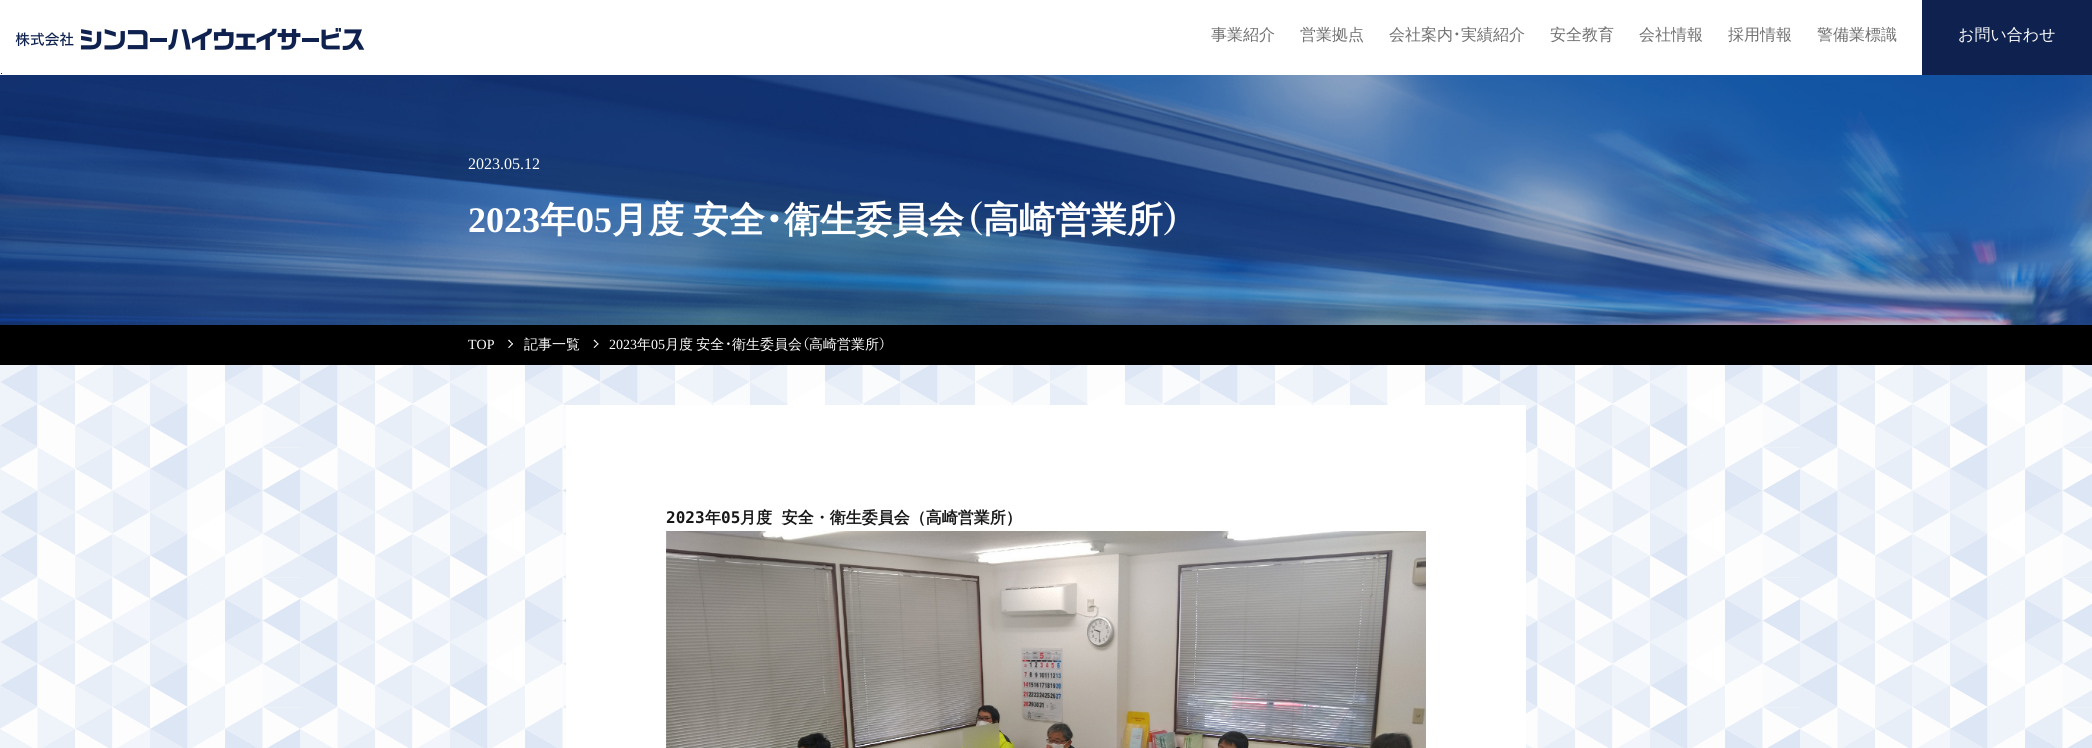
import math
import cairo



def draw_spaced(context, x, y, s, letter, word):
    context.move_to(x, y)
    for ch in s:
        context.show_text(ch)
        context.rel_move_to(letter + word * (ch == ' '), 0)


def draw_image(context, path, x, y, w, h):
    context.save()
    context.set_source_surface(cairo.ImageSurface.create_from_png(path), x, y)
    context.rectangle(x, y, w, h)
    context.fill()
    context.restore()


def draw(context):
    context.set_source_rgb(1, 1, 1)
    context.paint()
    draw_image(context, "images/1.png", 15, 28, 350, 22)
    context.set_source_rgb(15 / 255, 34 / 255, 79 / 255)
    context.rectangle(1922, 0, 170, 75)
    context.fill()
    context.rectangle(1, 73, 1, 1)
    context.fill()
    draw_image(context, "images/2.png", 0, 75, 2092, 250)
    context.set_source_rgb(0, 0, 0)
    context.rectangle(0, 325, 2092, 40)
    context.fill()
    context.set_source_rgb(1, 1, 1)
    context.new_path()
    context.move_to(508, 340.5)
    context.line_to(509, 339.5)
    context.line_to(513, 344)
    context.line_to(512.5, 344.5)
    context.close_path()
    context.fill()
    context.new_path()
    context.move_to(508, 347.5)
    context.line_to(512.5, 343)
    context.line_to(513, 344)
    context.line_to(509, 348)
    context.close_path()
    context.fill()
    context.new_path()
    context.move_to(593.5, 340.5)
    context.line_to(594.5, 339.5)
    context.line_to(598.5, 344)
    context.line_to(598, 344.5)
    context.close_path()
    context.fill()
    context.new_path()
    context.move_to(593.5, 347.5)
    context.line_to(598, 343)
    context.line_to(598.5, 344)
    context.line_to(594.5, 348)
    context.close_path()
    context.fill()
    draw_image(context, "images/3.png", 0, 365, 2092, 383)
    context.rectangle(566, 405, 960, 343)
    context.fill()
    draw_image(context, "images/4.png", 666, 531, 760, 217)
    context.select_font_face("WenQuanYi Zen Hei Medium")
    context.set_font_size(16)
    context.set_source_rgb(112 / 255, 112 / 255, 112 / 255)
    context.move_to(1211, 40)
    context.show_text("事業紹介")
    context.move_to(1300, 40)
    context.show_text("営業拠点")
    context.move_to(1389, 40)
    context.show_text("会社案内")
    context.select_font_face("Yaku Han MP")
    context.move_to(1453, 40)
    context.show_text("・")
    context.select_font_face("WenQuanYi Zen Hei Medium")
    context.move_to(1461, 40)
    context.show_text("実績紹介")
    context.move_to(1550, 40)
    context.show_text("安全教育")
    context.move_to(1639, 40)
    context.show_text("会社情報")
    context.move_to(1728, 40)
    context.show_text("採用情報")
    context.move_to(1817, 40)
    context.show_text("警備業標識")
    context.set_source_rgb(1, 1, 1)
    context.move_to(1958, 40)
    context.show_text("お問い合わせ")
    context.select_font_face("Liberation Serif")
    context.move_to(468, 169)
    context.show_text("2023.05.12")
    context.select_font_face("Liberation Serif", cairo.FontSlant.NORMAL, cairo.FontWeight.BOLD)
    context.set_font_size(36)
    context.move_to(468, 232)
    context.show_text("2023")
    context.select_font_face("WenQuanYi Zen Hei", cairo.FontSlant.NORMAL, cairo.FontWeight.BOLD)
    context.move_to(540, 232)
    context.show_text("年")
    context.select_font_face("Liberation Serif", cairo.FontSlant.NORMAL, cairo.FontWeight.BOLD)
    context.move_to(576, 232)
    context.show_text("05")
    context.select_font_face("WenQuanYi Zen Hei", cairo.FontSlant.NORMAL, cairo.FontWeight.BOLD)
    draw_spaced(context, 612, 232, "月度 安全", 0, -2)
    context.select_font_face("Yaku Han MP", cairo.FontSlant.NORMAL, cairo.FontWeight.BOLD)
    context.move_to(765, 232)
    context.show_text("・")
    context.select_font_face("WenQuanYi Zen Hei", cairo.FontSlant.NORMAL, cairo.FontWeight.BOLD)
    context.move_to(784, 232)
    context.show_text("衛生委員会")
    context.select_font_face("Yaku Han MP", cairo.FontSlant.NORMAL, cairo.FontWeight.BOLD)
    context.move_to(964, 232)
    context.show_text("（")
    context.select_font_face("WenQuanYi Zen Hei", cairo.FontSlant.NORMAL, cairo.FontWeight.BOLD)
    context.move_to(983, 232)
    context.show_text("高崎営業所")
    context.select_font_face("Yaku Han MP", cairo.FontSlant.NORMAL, cairo.FontWeight.BOLD)
    context.move_to(1163, 232)
    context.show_text("）")
    context.select_font_face("Liberation Serif")
    context.set_font_size(14)
    context.move_to(468, 349)
    context.show_text("TOP")
    context.select_font_face("WenQuanYi Zen Hei Medium")
    context.move_to(524, 349)
    context.show_text("記事一覧")
    context.select_font_face("Liberation Serif")
    context.move_to(609, 349)
    context.show_text("2023")
    context.select_font_face("WenQuanYi Zen Hei Medium")
    context.move_to(637, 349)
    context.show_text("年")
    context.select_font_face("Liberation Serif")
    context.move_to(651, 349)
    context.show_text("05")
    context.select_font_face("WenQuanYi Zen Hei Medium")
    draw_spaced(context, 665, 349, "月度 安全", 0, -1)
    context.select_font_face("Yaku Han MP")
    context.move_to(725, 349)
    context.show_text("・")
    context.select_font_face("WenQuanYi Zen Hei Medium")
    context.move_to(732, 349)
    context.show_text("衛生委員会")
    context.select_font_face("Yaku Han MP")
    context.move_to(802, 349)
    context.show_text("（")
    context.select_font_face("WenQuanYi Zen Hei Medium")
    context.move_to(809, 349)
    context.show_text("高崎営業所")
    context.select_font_face("Yaku Han MP")
    context.move_to(879, 349)
    context.show_text("）")
    context.select_font_face("DejaVu Sans Mono", cairo.FontSlant.NORMAL, cairo.FontWeight.BOLD)
    context.set_font_size(16)
    context.set_source_rgb(23 / 255, 23 / 255, 23 / 255)
    context.move_to(666, 523)
    context.show_text("2023")
    context.select_font_face("WenQuanYi Zen Hei", cairo.FontSlant.NORMAL, cairo.FontWeight.BOLD)
    context.move_to(705, 523)
    context.show_text("年")
    context.select_font_face("DejaVu Sans Mono", cairo.FontSlant.NORMAL, cairo.FontWeight.BOLD)
    context.move_to(721, 523)
    context.show_text("05")
    context.select_font_face("WenQuanYi Zen Hei", cairo.FontSlant.NORMAL, cairo.FontWeight.BOLD)
    draw_spaced(context, 740, 523, "月度 安全・衛生委員会（高崎営業所）", 0, 5)


surface = cairo.ImageSurface(cairo.Format.RGB24, 2092, 748)
context = cairo.Context(surface)
options = cairo.FontOptions()
options.set_hint_metrics(cairo.HintMetrics.OFF)
options.set_hint_style(cairo.HintStyle.NONE)
context.set_font_options(options)
context.set_miter_limit(4)
draw(context)
surface.write_to_png("out.png")
